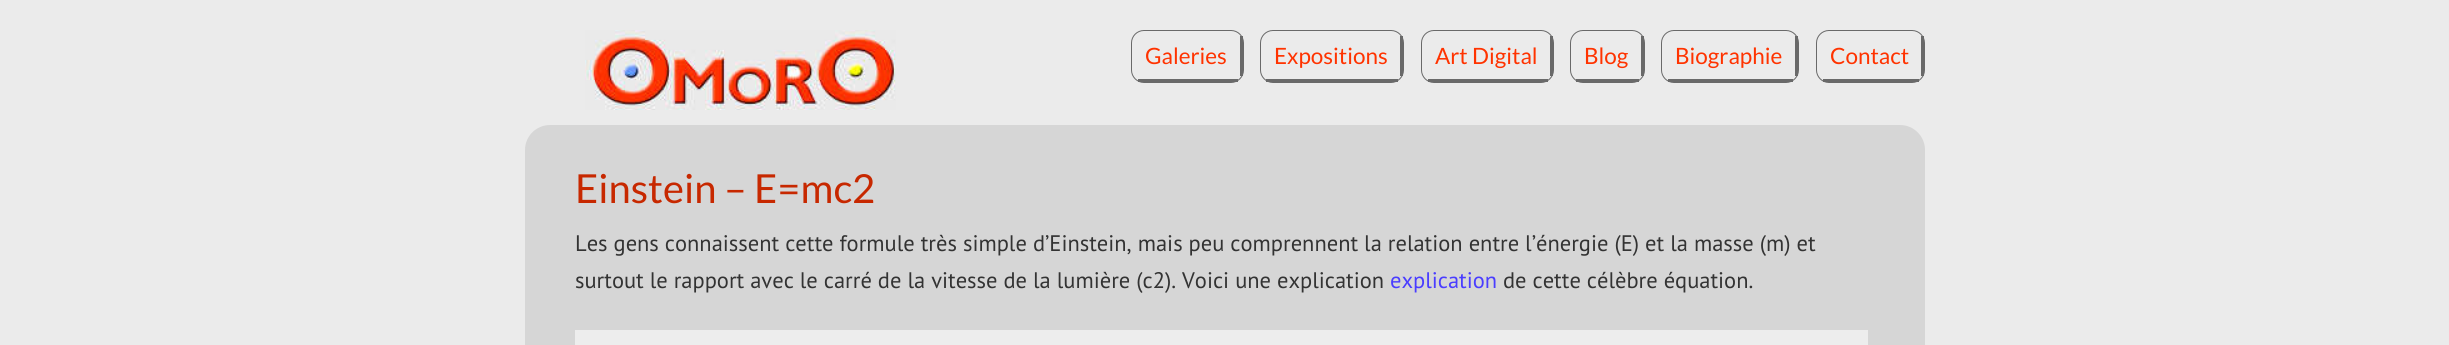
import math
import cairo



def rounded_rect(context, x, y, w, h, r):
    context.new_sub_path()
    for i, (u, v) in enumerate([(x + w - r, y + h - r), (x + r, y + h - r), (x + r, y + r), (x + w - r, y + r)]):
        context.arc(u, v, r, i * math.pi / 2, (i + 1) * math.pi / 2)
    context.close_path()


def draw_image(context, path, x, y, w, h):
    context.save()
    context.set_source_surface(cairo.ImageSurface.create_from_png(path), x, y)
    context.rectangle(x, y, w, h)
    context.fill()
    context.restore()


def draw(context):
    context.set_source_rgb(235 / 255, 235 / 255, 235 / 255)
    context.paint()
    draw_image(context, "images/1.png", 585, 30, 311, 80)
    rounded_rect(context, 1131.5, 30.5, 112, 52, 12.5)
    context.set_source_rgb(105 / 255, 105 / 255, 105 / 255)
    context.set_line_width(1)
    context.stroke()
    context.rectangle(1240, 36, 3, 40)
    context.fill()
    context.rectangle(1138, 79, 100, 3)
    context.fill()
    rounded_rect(context, 1260.5, 30.5, 143, 52, 12.5)
    context.stroke()
    context.rectangle(1400, 36, 3, 40)
    context.fill()
    context.rectangle(1266, 79, 132, 3)
    context.fill()
    rounded_rect(context, 1421.5, 30.5, 132, 52, 12.5)
    context.stroke()
    context.rectangle(1550, 36, 3, 40)
    context.fill()
    context.rectangle(1428, 79, 120, 3)
    context.fill()
    rounded_rect(context, 1570.5, 30.5, 74, 52, 12.5)
    context.stroke()
    context.rectangle(1641, 36, 3, 40)
    context.fill()
    context.rectangle(1576, 79, 63, 3)
    context.fill()
    rounded_rect(context, 1661.5, 30.5, 137, 52, 12.5)
    context.stroke()
    context.rectangle(1795, 36, 3, 40)
    context.fill()
    context.rectangle(1668, 79, 125, 3)
    context.fill()
    rounded_rect(context, 1816.5, 30.5, 108, 52, 12.5)
    context.stroke()
    context.rectangle(1921, 36, 3, 40)
    context.fill()
    context.rectangle(1823, 79, 96, 3)
    context.fill()
    context.set_source_rgb(214 / 255, 214 / 255, 214 / 255)
    rounded_rect(context, 525, 125, 1400, 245, 25)
    context.fill()
    context.set_source_rgb(237 / 255, 237 / 255, 237 / 255)
    context.rectangle(575, 330, 1293, 15)
    context.fill()
    context.select_font_face("Lato")
    context.set_font_size(22.5)
    context.set_source_rgb(1, 51 / 255, 0)
    context.move_to(1145, 64)
    context.show_text("Galeries")
    context.move_to(1274, 64)
    context.show_text("Expositions")
    context.move_to(1435, 64)
    context.show_text("Art Digital")
    context.move_to(1584, 64)
    context.show_text("Blog")
    context.move_to(1675, 64)
    context.show_text("Biographie")
    context.move_to(1830, 64)
    context.show_text("Contact")
    context.set_font_size(40)
    context.set_source_rgb(199 / 255, 40 / 255, 0)
    context.move_to(575, 203)
    context.show_text("Einstein – E=mc2")
    context.select_font_face("PT Sans")
    context.set_font_size(22.5)
    context.set_source_rgb(51 / 255, 51 / 255, 51 / 255)
    context.move_to(575, 251)
    context.show_text("Les gens connaissent cette formule très simple d’Einstein, mais peu comprennent la relation entre l’énergie (E) et la masse (m) et")
    context.move_to(575, 288)
    context.show_text("surtout le rapport avec le carré de la vitesse de la lumière (c2). Voici une explication")
    context.set_source_rgb(74 / 255, 61 / 255, 1)
    context.move_to(1390, 288)
    context.show_text("explication")
    context.set_source_rgb(51 / 255, 51 / 255, 51 / 255)
    context.move_to(1503, 288)
    context.show_text("de cette célèbre équation.")


surface = cairo.ImageSurface(cairo.Format.RGB24, 2449, 345)
context = cairo.Context(surface)
options = cairo.FontOptions()
options.set_hint_metrics(cairo.HintMetrics.OFF)
options.set_hint_style(cairo.HintStyle.NONE)
context.set_font_options(options)
context.set_miter_limit(4)
draw(context)
surface.write_to_png("out.png")
